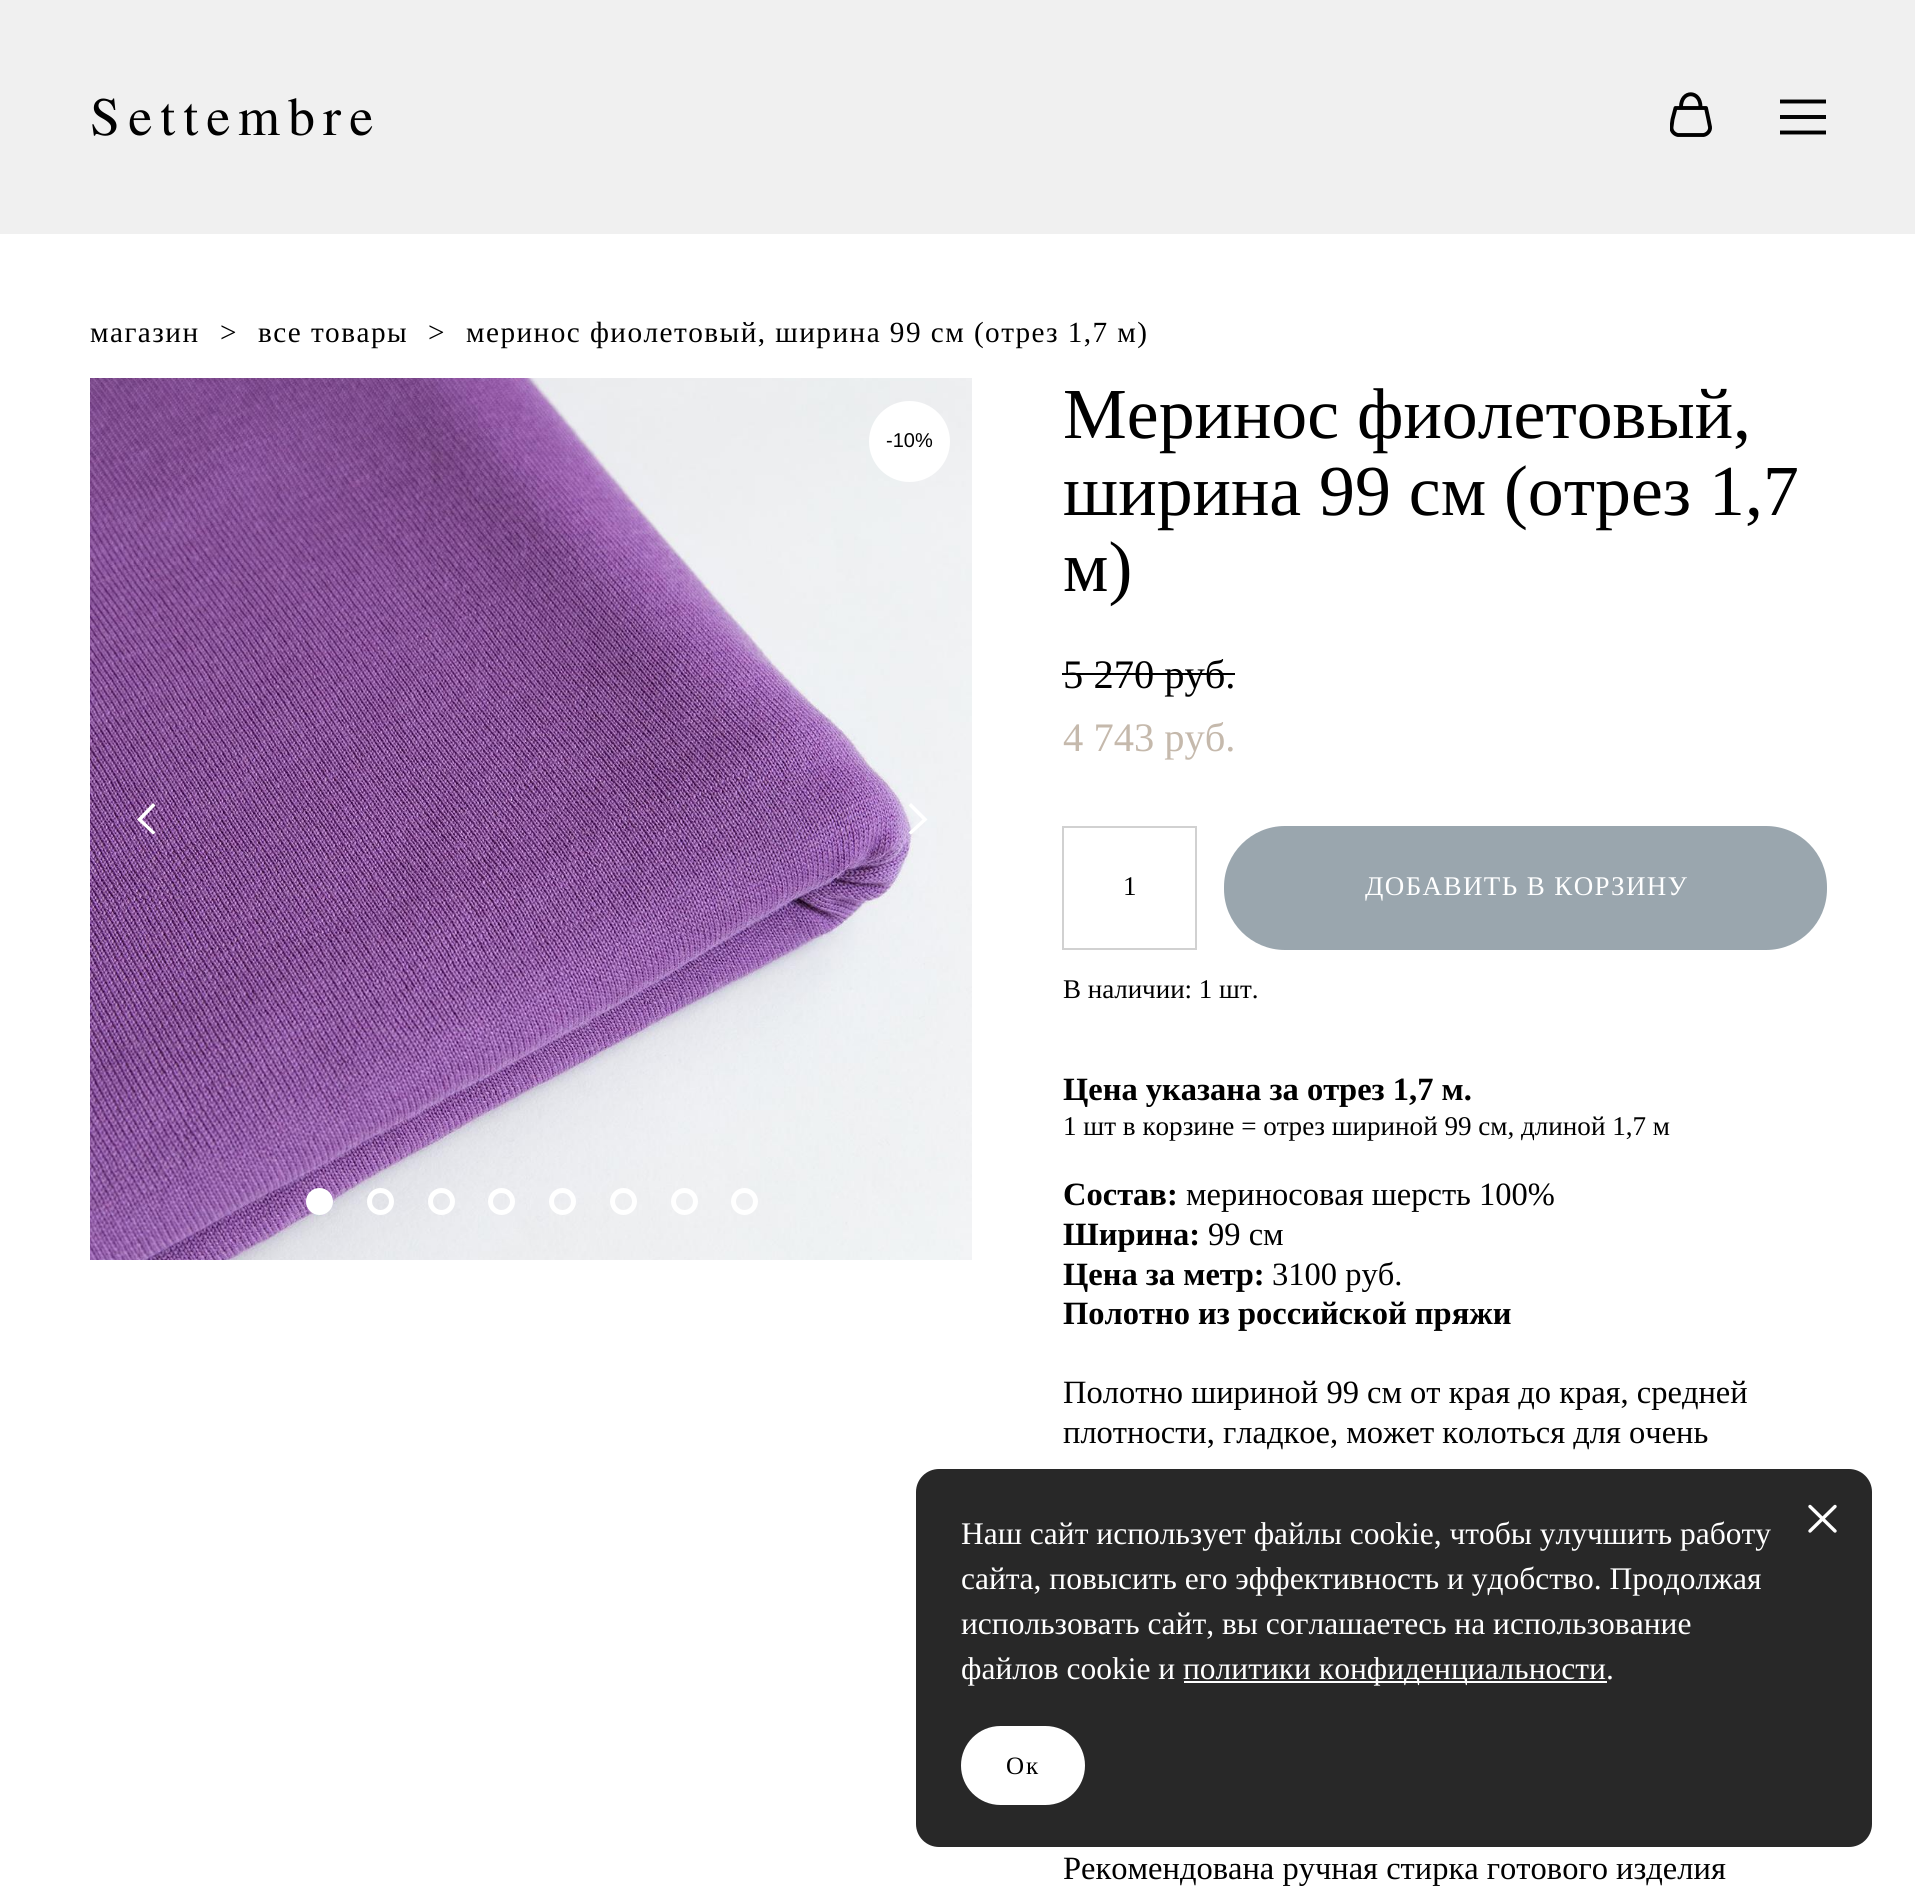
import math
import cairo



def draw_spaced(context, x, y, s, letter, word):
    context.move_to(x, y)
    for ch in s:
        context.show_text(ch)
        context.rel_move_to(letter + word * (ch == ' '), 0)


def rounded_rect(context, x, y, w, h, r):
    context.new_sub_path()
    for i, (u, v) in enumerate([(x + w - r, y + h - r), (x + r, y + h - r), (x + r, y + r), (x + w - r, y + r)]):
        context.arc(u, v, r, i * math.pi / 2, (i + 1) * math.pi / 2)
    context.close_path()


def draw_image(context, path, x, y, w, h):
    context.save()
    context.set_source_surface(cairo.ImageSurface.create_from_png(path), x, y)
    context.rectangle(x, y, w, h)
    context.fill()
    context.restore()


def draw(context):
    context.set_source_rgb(1, 1, 1)
    context.paint()
    context.set_source_rgb(240 / 255, 240 / 255, 240 / 255)
    context.rectangle(0, 0, 1915, 234)
    context.fill()
    context.save()
    context.rectangle(1670, 92, 42, 45)
    context.clip()
    context.new_path()
    context.move_to(1706, 108)
    context.line_to(1675.5, 108)
    context.line_to(1672.5, 119.5)
    context.line_to(1671.5, 127)
    context.curve_to(1671, 131, 1674.5, 134.5, 1678, 135)
    context.line_to(1703.5, 135)
    context.curve_to(1707, 134.5, 1710.5, 131, 1710, 127)
    context.line_to(1708.5, 119.5)
    context.close_path()
    context.set_source_rgb(0, 0, 0)
    context.set_line_width(3.9)
    context.set_line_cap(cairo.LineCap.ROUND)
    context.set_line_join(cairo.LineJoin.ROUND)
    context.stroke()
    context.restore()
    context.new_path()
    context.move_to(1681, 107)
    context.curve_to(1681, 90, 1700.5, 90, 1700.5, 107)
    context.set_source_rgb(0, 0, 0)
    context.set_line_width(3.9)
    context.stroke()
    context.new_path()
    context.move_to(1780, 101.5)
    context.line_to(1826, 101.5)
    context.stroke()
    context.set_source_rgb(6 / 255, 6 / 255, 6 / 255)
    context.rectangle(1780, 115, 46, 4)
    context.fill()
    context.new_path()
    context.move_to(1780, 132.5)
    context.line_to(1826, 132.5)
    context.set_source_rgb(0, 0, 0)
    context.stroke()
    draw_image(context, "images/1.png", 90, 378, 882, 882)
    context.set_source_rgb(1, 1, 1)
    context.arc(909.5, 441.5, 39.5, 0, 2 * math.pi)
    context.fill_preserve()
    context.set_line_width(2)
    context.stroke()
    context.new_path()
    context.move_to(142, 819.5)
    context.line_to(155.5, 832.5)
    context.line_to(153, 834.5)
    context.line_to(137, 819.5)
    context.line_to(153, 803)
    context.line_to(155.5, 805.5)
    context.close_path()
    context.fill()
    context.new_path()
    context.move_to(927.5, 819.5)
    context.line_to(911, 834.5)
    context.line_to(908.5, 832.5)
    context.line_to(922.5, 819.5)
    context.line_to(908.5, 805.5)
    context.line_to(911, 803)
    context.line_to(927.5, 819.5)
    context.line_to(927, 819.5)
    context.close_path()
    context.fill()
    context.arc(319.5, 1201.5, 11, 0, 2 * math.pi)
    context.fill_preserve()
    context.set_line_width(5)
    context.stroke()
    context.arc(380.5, 1201.5, 11, 0, 2 * math.pi)
    context.stroke()
    context.arc(441.5, 1201.5, 11, 0, 2 * math.pi)
    context.stroke()
    context.arc(501.5, 1201.5, 11, 0, 2 * math.pi)
    context.stroke()
    context.arc(562.5, 1201.5, 11, 0, 2 * math.pi)
    context.stroke()
    context.arc(623.5, 1201.5, 11, 0, 2 * math.pi)
    context.stroke()
    context.arc(684.5, 1201.5, 11, 0, 2 * math.pi)
    context.stroke()
    context.arc(744.5, 1201.5, 11, 0, 2 * math.pi)
    context.stroke()
    context.set_source_rgb(0, 0, 0)
    context.rectangle(1062, 673, 173, 2)
    context.fill()
    context.rectangle(1063, 827, 133, 122)
    context.set_source_rgb(209 / 255, 209 / 255, 209 / 255)
    context.set_line_width(2)
    context.stroke()
    context.set_source_rgb(154 / 255, 166 / 255, 174 / 255)
    rounded_rect(context, 1224, 826, 603, 124, 61)
    context.fill()
    context.set_source_rgba(17 / 255, 17 / 255, 17 / 255, 0.9)
    rounded_rect(context, 916, 1469, 956, 378, 23)
    context.fill()
    context.set_source_rgb(1, 1, 1)
    context.rectangle(1184, 1681, 423, 2)
    context.fill()
    rounded_rect(context, 961, 1726, 124, 79, 39.5)
    context.fill()
    context.new_path()
    context.move_to(1835, 1506.5)
    context.line_to(1810, 1531)
    context.move_to(1810, 1506.5)
    context.line_to(1835, 1531)
    context.set_line_width(3.4)
    context.set_line_cap(cairo.LineCap.ROUND)
    context.set_line_join(cairo.LineJoin.ROUND)
    context.stroke()
    context.select_font_face("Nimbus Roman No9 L")
    context.set_font_size(54)
    context.set_source_rgb(0, 0, 0)
    draw_spaced(context, 90, 135, "Settembre", 8, 0)
    context.select_font_face("Liberation Serif")
    context.set_font_size(29.25)
    draw_spaced(context, 90, 342, "магазин", 1.45, 0)
    draw_spaced(context, 220, 342, ">", 1.45, 0)
    draw_spaced(context, 258, 342, "все товары", 1.45, 0)
    draw_spaced(context, 428, 342, ">", 1.45, 0)
    draw_spaced(context, 466, 342, "меринос фиолетовый, ширина 99 см (отрез 1,7 м)", 1.45, 0)
    context.select_font_face("Liberation Sans")
    context.set_font_size(20)
    context.move_to(886, 447)
    context.show_text("-10%")
    context.select_font_face("Liberation Serif")
    context.set_font_size(71.75)
    context.move_to(1063, 438)
    context.show_text("Меринос фиолетовый,")
    context.move_to(1063, 515)
    context.show_text("ширина 99 см (отрез 1,7")
    context.move_to(1063, 591)
    context.show_text("м)")
    context.set_font_size(40.5)
    context.move_to(1063, 688)
    context.show_text("5 270 pуб.")
    context.set_source_rgb(197 / 255, 185 / 255, 172 / 255)
    context.move_to(1063, 751)
    context.show_text("4 743 pуб.")
    context.set_font_size(27)
    context.set_source_rgb(0, 0, 0)
    context.move_to(1123, 895)
    context.show_text("1")
    context.set_source_rgb(1, 1, 1)
    draw_spaced(context, 1365, 895, "ДОБАВИТЬ В КОРЗИНУ", 1.4, 0)
    context.set_source_rgb(0, 0, 0)
    context.move_to(1063, 998)
    context.show_text("В наличии: 1 шт.")
    context.select_font_face("Liberation Serif", cairo.FontSlant.NORMAL, cairo.FontWeight.BOLD)
    context.set_font_size(32.5)
    context.move_to(1063, 1100)
    context.show_text("Цена указана за отрез 1,7 м.")
    context.select_font_face("Liberation Serif")
    context.set_font_size(27.1)
    context.move_to(1063, 1135)
    context.show_text("1 шт в корзине = отрез шириной 99 см, длиной 1,7 м")
    context.select_font_face("Liberation Serif", cairo.FontSlant.NORMAL, cairo.FontWeight.BOLD)
    context.set_font_size(32.5)
    context.move_to(1063, 1205)
    context.show_text("Состав:")
    context.select_font_face("Liberation Serif")
    context.move_to(1186, 1205)
    context.show_text("мериносовая шерсть 100%")
    context.select_font_face("Liberation Serif", cairo.FontSlant.NORMAL, cairo.FontWeight.BOLD)
    context.move_to(1063, 1245)
    context.show_text("Ширина:")
    context.select_font_face("Liberation Serif")
    context.move_to(1208, 1245)
    context.show_text("99 см")
    context.select_font_face("Liberation Serif", cairo.FontSlant.NORMAL, cairo.FontWeight.BOLD)
    context.move_to(1063, 1285)
    context.show_text("Цена за метр:")
    context.select_font_face("Liberation Serif")
    context.move_to(1272, 1285)
    context.show_text("3100 руб.")
    context.select_font_face("Liberation Serif", cairo.FontSlant.NORMAL, cairo.FontWeight.BOLD)
    context.move_to(1063, 1324)
    context.show_text("Полотно из российской пряжи")
    context.select_font_face("Liberation Serif")
    context.move_to(1063, 1403)
    context.show_text("Полотно шириной 99 см от края до края, средней")
    context.move_to(1063, 1443)
    context.show_text("плотности, гладкое, может колоться для очень")
    context.move_to(1063, 1879)
    context.show_text("Рекомендована ручная стирка готового изделия")
    context.set_font_size(31.5)
    context.set_source_rgb(1, 1, 1)
    context.move_to(961, 1544)
    context.show_text("Наш сайт использует файлы cookie, чтобы улучшить работу")
    context.move_to(961, 1589)
    context.show_text("сайта, повысить его эффективность и удобство. Продолжая")
    context.move_to(961, 1634)
    context.show_text("использовать сайт, вы соглашаетесь на использование")
    context.move_to(961, 1679)
    context.show_text("файлов cookie и")
    context.move_to(1183, 1679)
    context.show_text("политики конфиденциальности.")
    context.set_font_size(25)
    context.set_source_rgb(0, 0, 0)
    draw_spaced(context, 1006, 1774, "Ок", 2, 0)


surface = cairo.ImageSurface(cairo.Format.RGB24, 1915, 1892)
context = cairo.Context(surface)
options = cairo.FontOptions()
options.set_hint_metrics(cairo.HintMetrics.OFF)
options.set_hint_style(cairo.HintStyle.NONE)
context.set_font_options(options)
context.set_miter_limit(4)
draw(context)
surface.write_to_png("out.png")
